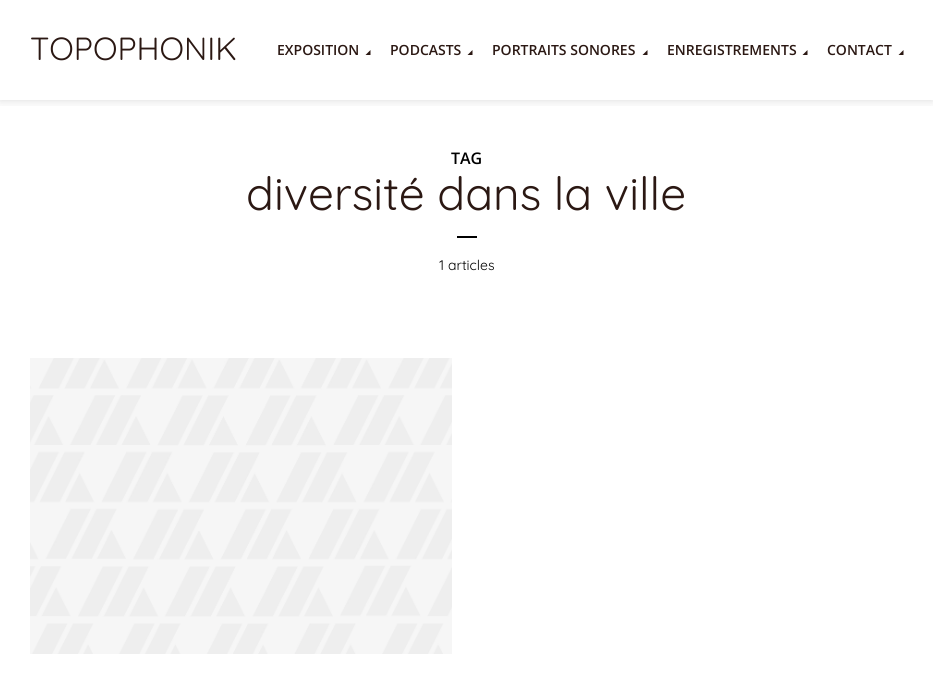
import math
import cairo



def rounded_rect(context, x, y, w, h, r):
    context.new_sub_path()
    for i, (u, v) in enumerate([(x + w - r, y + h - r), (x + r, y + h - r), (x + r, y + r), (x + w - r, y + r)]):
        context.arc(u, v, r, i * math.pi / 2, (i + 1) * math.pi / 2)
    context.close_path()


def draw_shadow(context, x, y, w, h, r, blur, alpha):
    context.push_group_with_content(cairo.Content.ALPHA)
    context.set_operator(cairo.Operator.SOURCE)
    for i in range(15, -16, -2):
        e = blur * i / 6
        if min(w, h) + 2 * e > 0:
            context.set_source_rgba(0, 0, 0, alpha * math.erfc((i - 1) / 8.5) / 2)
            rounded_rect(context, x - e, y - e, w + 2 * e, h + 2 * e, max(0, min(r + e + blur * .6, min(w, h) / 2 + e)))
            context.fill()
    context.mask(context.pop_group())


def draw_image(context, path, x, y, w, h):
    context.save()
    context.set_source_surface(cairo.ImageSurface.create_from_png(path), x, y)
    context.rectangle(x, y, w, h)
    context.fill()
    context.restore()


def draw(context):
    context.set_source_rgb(1, 1, 1)
    context.paint()
    context.save()
    context.rectangle(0, 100, 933, 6)
    context.clip()
    context.set_source_rgb(0, 0, 0)
    draw_shadow(context, 0, 0, 933, 100, 0, 5, 0.15)
    context.restore()
    context.set_source_rgb(43 / 255, 24 / 255, 19 / 255)
    context.new_path()
    context.move_to(370.5, 50)
    context.line_to(370.5, 55)
    context.line_to(365.5, 55)
    context.close_path()
    context.fill()
    context.new_path()
    context.move_to(472.5, 50)
    context.line_to(472.5, 55)
    context.line_to(467.5, 55)
    context.close_path()
    context.fill()
    context.new_path()
    context.move_to(647.5, 50)
    context.line_to(647.5, 55)
    context.line_to(642.5, 55)
    context.close_path()
    context.fill()
    context.new_path()
    context.move_to(807.5, 50)
    context.line_to(807.5, 55)
    context.line_to(802.5, 55)
    context.close_path()
    context.fill()
    context.new_path()
    context.move_to(903.5, 50)
    context.line_to(903.5, 55)
    context.line_to(898.5, 55)
    context.close_path()
    context.fill()
    context.set_source_rgb(0, 0, 0)
    context.rectangle(457, 236, 20, 2)
    context.fill()
    draw_image(context, "images/1.png", 30, 358, 422, 296)
    context.select_font_face("Quicksand Light")
    context.set_font_size(32)
    context.set_source_rgb(43 / 255, 24 / 255, 19 / 255)
    context.move_to(30, 60)
    context.show_text("TOPOPHONIK")
    context.select_font_face("Open Sans SemiBold")
    context.set_font_size(14)
    context.move_to(277, 55)
    context.show_text("EXPOSITION")
    context.move_to(390, 55)
    context.show_text("PODCASTS")
    context.move_to(492, 55)
    context.show_text("PORTRAITS SONORES")
    context.move_to(667, 55)
    context.show_text("ENREGISTREMENTS")
    context.move_to(827, 55)
    context.show_text("CONTACT")
    context.set_font_size(16)
    context.set_source_rgb(0, 0, 0)
    context.move_to(451, 164)
    context.show_text("TAG")
    context.select_font_face("Quicksand Light")
    context.set_font_size(46)
    context.set_source_rgb(43 / 255, 24 / 255, 19 / 255)
    context.move_to(246, 210)
    context.show_text("diversité dans la ville")
    context.set_font_size(14)
    context.set_source_rgb(0, 0, 0)
    context.move_to(439, 270)
    context.show_text("1 articles")


surface = cairo.ImageSurface(cairo.Format.RGB24, 933, 674)
context = cairo.Context(surface)
options = cairo.FontOptions()
options.set_hint_metrics(cairo.HintMetrics.OFF)
options.set_hint_style(cairo.HintStyle.NONE)
context.set_font_options(options)
context.set_miter_limit(4)
draw(context)
surface.write_to_png("out.png")
